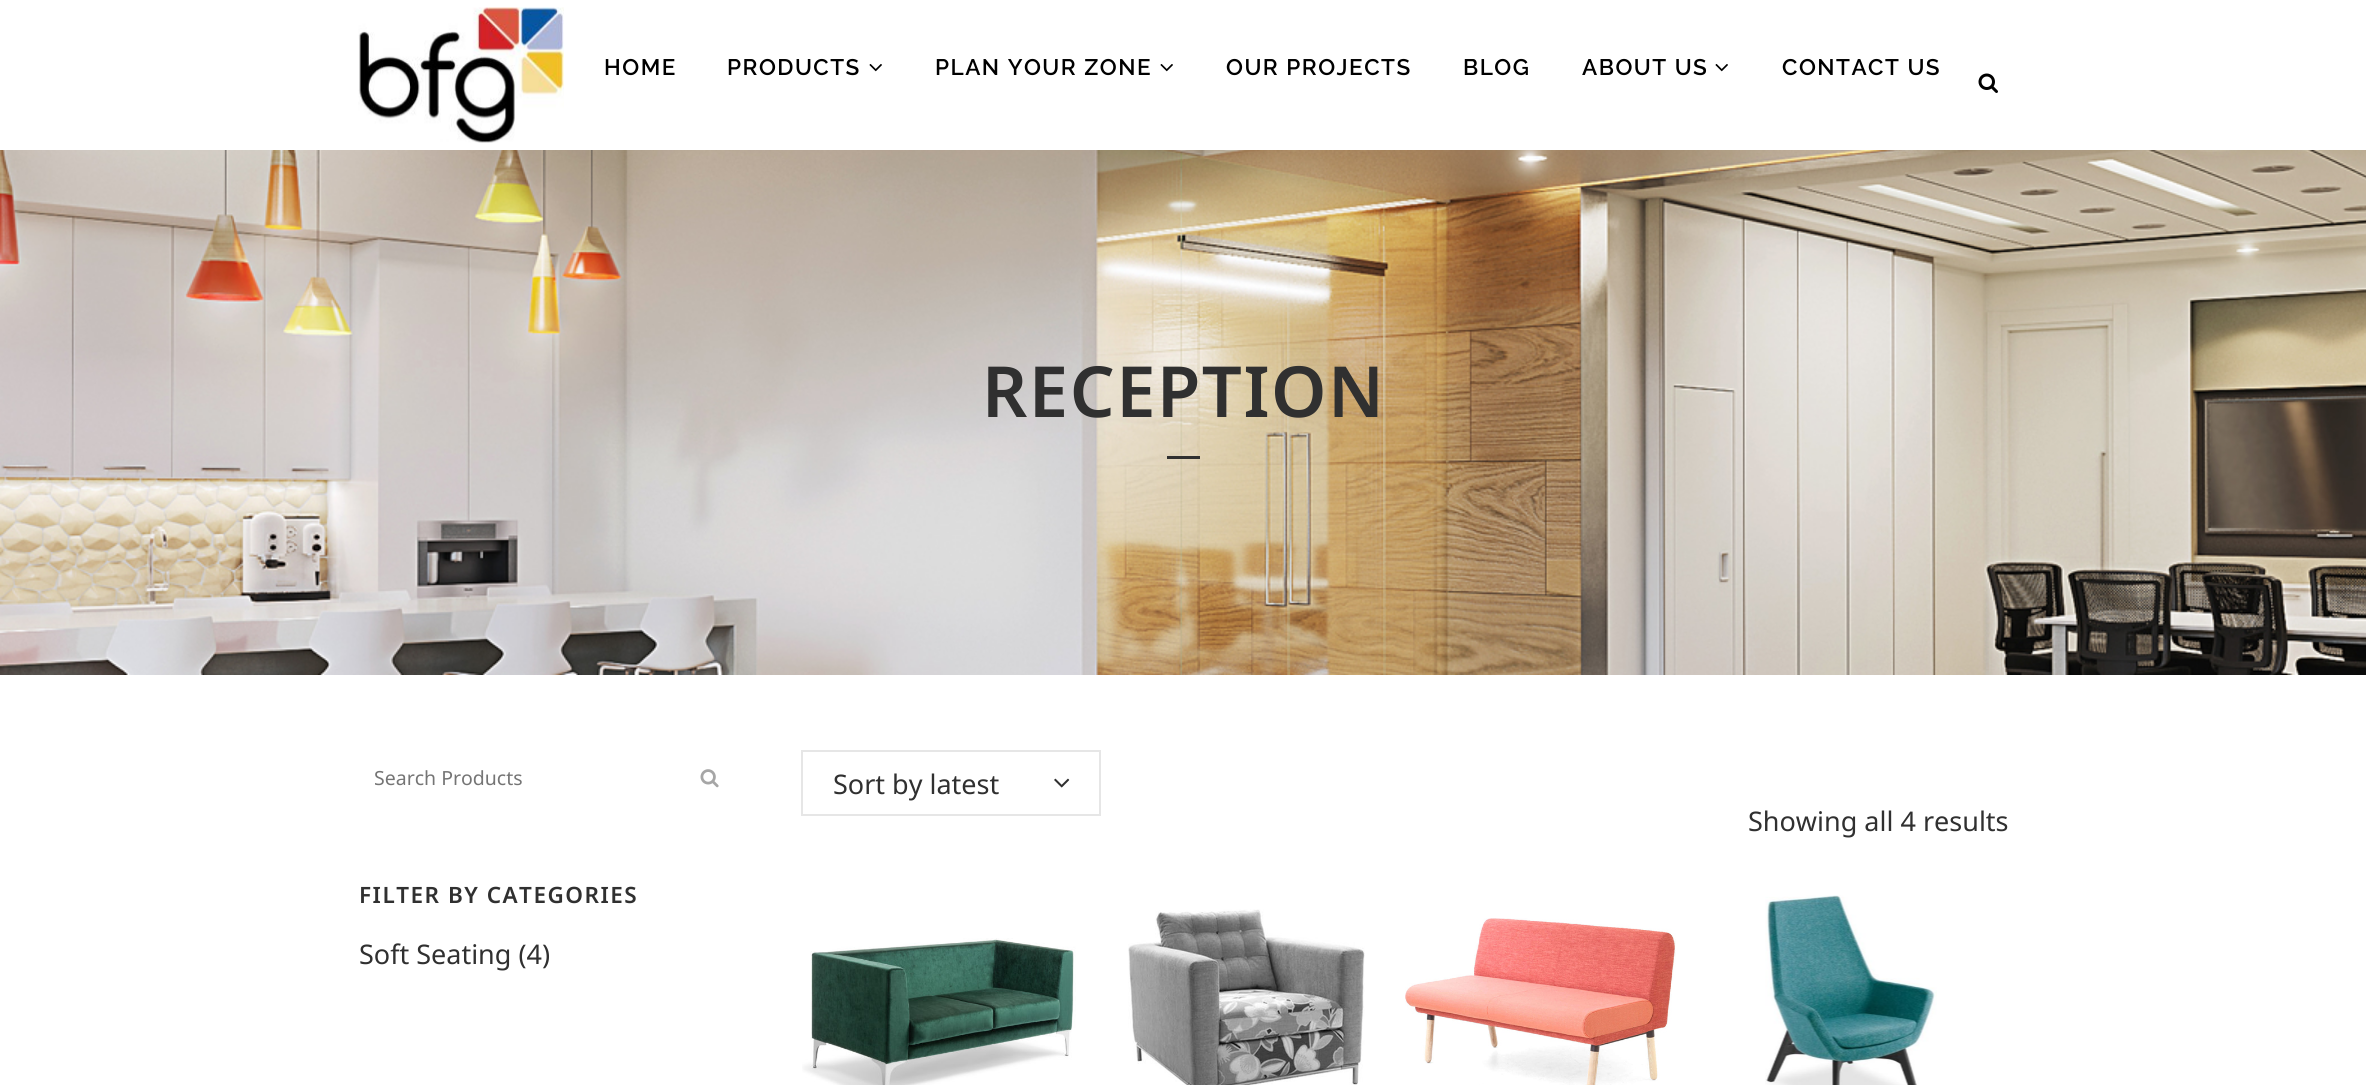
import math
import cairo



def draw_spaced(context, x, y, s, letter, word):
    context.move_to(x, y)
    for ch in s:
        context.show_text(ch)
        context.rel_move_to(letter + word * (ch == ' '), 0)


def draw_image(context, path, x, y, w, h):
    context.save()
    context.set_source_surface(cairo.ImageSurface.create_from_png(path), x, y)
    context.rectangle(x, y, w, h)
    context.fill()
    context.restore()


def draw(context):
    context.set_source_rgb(1, 1, 1)
    context.paint()
    draw_image(context, "images/1.png", 358, 7, 206, 136)
    draw_image(context, "images/2.png", 869, 64, 13, 8)
    draw_image(context, "images/2.png", 1160, 64, 13, 8)
    draw_image(context, "images/2.png", 1715, 64, 13, 8)
    draw_image(context, "images/3.png", 1978, 73, 20, 20)
    draw_image(context, "images/4.png", 0, 150, 2366, 525)
    context.set_source_rgb(48 / 255, 48 / 255, 48 / 255)
    context.rectangle(1167, 456, 33, 3)
    context.fill()
    draw_image(context, "images/5.png", 700, 769, 19, 19)
    context.rectangle(802, 751, 298, 64)
    context.set_source_rgb(230 / 255, 230 / 255, 230 / 255)
    context.stroke()
    draw_image(context, "images/6.png", 1054, 778, 16, 10)
    draw_image(context, "images/7.png", 802, 938, 274, 147)
    draw_image(context, "images/8.png", 1128, 909, 237, 176)
    draw_image(context, "images/9.png", 1405, 918, 271, 167)
    draw_image(context, "images/10.png", 1765, 895, 172, 190)
    context.select_font_face("Raleway SemiBold")
    context.set_font_size(22.5)
    context.set_source_rgb(0, 0, 0)
    draw_spaced(context, 604, 75, "HOME", 1.5, 0)
    draw_spaced(context, 727, 75, "PRODUCTS", 1.5, 0)
    draw_spaced(context, 935, 75, "PLAN YOUR ZONE", 1.5, 0)
    draw_spaced(context, 1226, 75, "OUR PROJECTS", 1.5, 0)
    draw_spaced(context, 1463, 75, "BLOG", 1.5, 0)
    draw_spaced(context, 1582, 75, "ABOUT US", 1.5, 0)
    draw_spaced(context, 1782, 75, "CONTACT US", 1.5, 0)
    context.select_font_face("Noto Sans SemiBold")
    context.set_font_size(70.5)
    context.set_source_rgb(48 / 255, 48 / 255, 48 / 255)
    draw_spaced(context, 982, 417, "RECEPTION", 1.5, 0)
    context.select_font_face("Noto Sans")
    context.set_font_size(19.5)
    context.set_source_rgb(117 / 255, 117 / 255, 117 / 255)
    context.move_to(374, 785)
    context.show_text("Search Products")
    context.select_font_face("Noto Sans SemiBold")
    context.set_font_size(22.5)
    context.set_source_rgb(48 / 255, 48 / 255, 48 / 255)
    draw_spaced(context, 359, 903, "FILTER BY CATEGORIES", 1.5, 0)
    context.select_font_face("Noto Sans")
    context.set_font_size(27)
    context.move_to(359, 964)
    context.show_text("Soft Seating (4)")
    context.move_to(833, 794)
    context.show_text("Sort by latest")
    context.move_to(1748, 831)
    context.show_text("Showing all 4 results")


surface = cairo.ImageSurface(cairo.Format.RGB24, 2366, 1085)
context = cairo.Context(surface)
options = cairo.FontOptions()
options.set_hint_metrics(cairo.HintMetrics.OFF)
options.set_hint_style(cairo.HintStyle.NONE)
context.set_font_options(options)
context.set_miter_limit(4)
draw(context)
surface.write_to_png("out.png")
